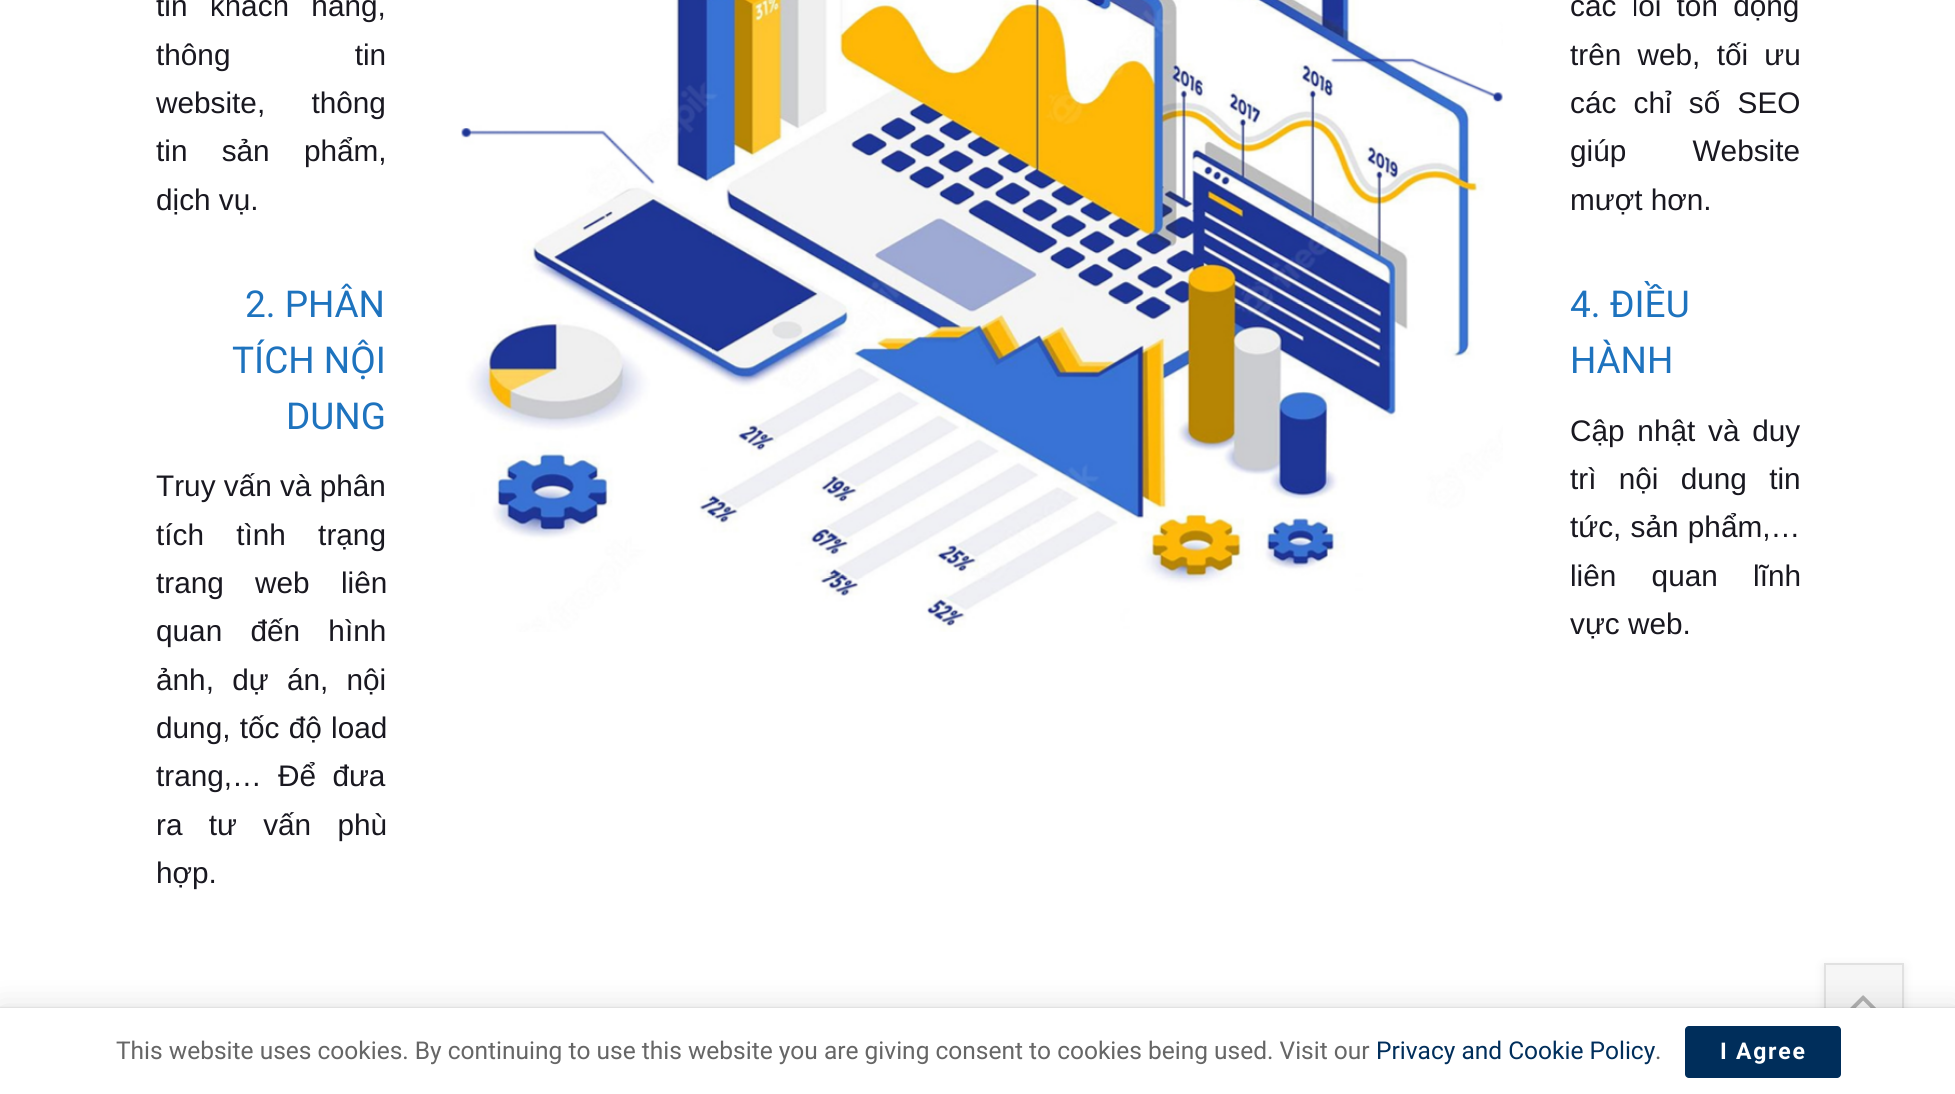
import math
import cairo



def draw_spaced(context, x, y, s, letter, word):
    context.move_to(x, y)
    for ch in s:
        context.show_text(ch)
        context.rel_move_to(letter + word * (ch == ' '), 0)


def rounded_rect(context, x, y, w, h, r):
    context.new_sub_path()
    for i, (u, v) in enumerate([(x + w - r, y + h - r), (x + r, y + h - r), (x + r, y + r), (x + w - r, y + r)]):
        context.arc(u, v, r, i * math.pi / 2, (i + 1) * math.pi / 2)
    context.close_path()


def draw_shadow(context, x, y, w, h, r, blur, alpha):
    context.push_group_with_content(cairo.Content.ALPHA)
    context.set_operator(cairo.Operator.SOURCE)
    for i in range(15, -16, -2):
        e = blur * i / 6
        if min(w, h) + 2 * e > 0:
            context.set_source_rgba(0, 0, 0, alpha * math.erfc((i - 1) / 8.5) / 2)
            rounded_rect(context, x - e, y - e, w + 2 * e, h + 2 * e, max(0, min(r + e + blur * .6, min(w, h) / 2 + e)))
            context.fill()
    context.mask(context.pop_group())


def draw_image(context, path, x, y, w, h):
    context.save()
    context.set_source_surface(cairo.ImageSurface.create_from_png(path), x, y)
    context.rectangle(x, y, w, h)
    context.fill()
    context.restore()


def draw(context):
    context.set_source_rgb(1, 1, 1)
    context.paint()
    draw_image(context, "images/1.png", 461, 0, 1042, 632)
    context.set_source_rgb(51 / 255, 51 / 255, 51 / 255)
    draw_shadow(context, 1824, 966, 80, 81, 0, 5, 0.1)
    context.set_source_rgb(246 / 255, 246 / 255, 246 / 255)
    context.rectangle(1826, 967, 76, 41)
    context.fill()
    context.rectangle(1825, 964, 78, 78)
    context.set_source_rgb(225 / 255, 225 / 255, 225 / 255)
    context.stroke()
    draw_image(context, "images/2.png", 1850, 995, 26, 13)
    context.set_source_rgb(0, 0, 0)
    draw_shadow(context, 0, 1012, 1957, 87, 0, 17.5, 0.15)
    draw_shadow(context, 0, 1008, 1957, 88, 0, 1, 0.2)
    context.set_source_rgb(1, 1, 1)
    context.rectangle(0, 1008, 1955, 86)
    context.fill()
    context.set_source_rgb(0, 46 / 255, 91 / 255)
    rounded_rect(context, 1685, 1026, 156, 52, 4)
    context.fill()
    context.select_font_face("Liberation Sans")
    context.set_font_size(29.75)
    context.set_source_rgb(25 / 255, 24 / 255, 32 / 255)
    draw_spaced(context, 156, 16, "tin khách hàng,", 0, 14)
    draw_spaced(context, 156, 65, "thông tin", 0, 116)
    draw_spaced(context, 156, 113, "website, thông", 0, 38)
    draw_spaced(context, 156, 161, "tin sản phẩm,", 0, 26)
    context.move_to(156, 210)
    context.show_text("dịch vụ.")
    context.select_font_face("Roboto")
    context.set_font_size(37)
    context.set_source_rgb(30 / 255, 115 / 255, 190 / 255)
    context.move_to(245, 317)
    context.show_text("2. PHÂN")
    context.move_to(232, 373)
    context.show_text("TÍCH NỘI")
    context.move_to(286, 429)
    context.show_text("DUNG")
    context.select_font_face("Liberation Sans")
    context.set_font_size(29.75)
    context.set_source_rgb(25 / 255, 24 / 255, 32 / 255)
    context.move_to(156, 496)
    context.show_text("Truy vấn và phân")
    draw_spaced(context, 156, 545, "tích tình trạng", 0, 24)
    draw_spaced(context, 156, 593, "trang web liên", 0, 23)
    draw_spaced(context, 156, 641, "quan đến hình", 0, 20)
    draw_spaced(context, 156, 690, "ảnh, dự án, nội", 0, 10)
    draw_spaced(context, 156, 738, "dung, tốc độ load", 0, 1)
    draw_spaced(context, 156, 786, "trang,… Để đưa", 0, 8)
    draw_spaced(context, 156, 835, "ra tư vấn phù", 0, 18)
    context.move_to(156, 883)
    context.show_text("hợp.")
    draw_spaced(context, 1570, 16, "các lỗi tồn đọng", 0, 7)
    draw_spaced(context, 1570, 65, "trên web, tối ưu", 0, 8)
    draw_spaced(context, 1570, 113, "các chỉ số SEO", 0, 9)
    draw_spaced(context, 1570, 161, "giúp Website", 0, 58)
    context.move_to(1570, 210)
    context.show_text("mượt hơn.")
    context.select_font_face("Roboto")
    context.set_font_size(37)
    context.set_source_rgb(30 / 255, 115 / 255, 190 / 255)
    context.move_to(1570, 317)
    context.show_text("4. ĐIỀU")
    context.move_to(1570, 373)
    context.show_text("HÀNH")
    context.select_font_face("Liberation Sans")
    context.set_font_size(29.75)
    context.set_source_rgb(25 / 255, 24 / 255, 32 / 255)
    draw_spaced(context, 1570, 441, "Cập nhật và duy", 0, 4.5)
    draw_spaced(context, 1570, 489, "trì nội dung tin", 0, 14)
    draw_spaced(context, 1570, 537, "tức, sản phẩm,…", 0, 1)
    draw_spaced(context, 1570, 586, "liên quan lĩnh", 0, 27)
    context.move_to(1570, 634)
    context.show_text("vực web.")
    context.select_font_face("Roboto")
    context.set_font_size(24.5)
    context.set_source_rgb(102 / 255, 102 / 255, 102 / 255)
    context.move_to(116, 1059)
    context.show_text("This website uses cookies. By continuing to use this website you are giving consent to cookies being used. Visit our")
    context.set_source_rgb(0, 46 / 255, 91 / 255)
    context.move_to(1376, 1059)
    context.show_text("Privacy and Cookie Policy")
    context.set_source_rgb(102 / 255, 102 / 255, 102 / 255)
    context.move_to(1655, 1059)
    context.show_text(".")
    context.select_font_face("Roboto", cairo.FontSlant.NORMAL, cairo.FontWeight.BOLD)
    context.set_font_size(23)
    context.set_source_rgb(1, 1, 1)
    draw_spaced(context, 1720, 1059, "I Agree", 1.75, 0)


surface = cairo.ImageSurface(cairo.Format.RGB24, 1955, 1094)
context = cairo.Context(surface)
options = cairo.FontOptions()
options.set_hint_metrics(cairo.HintMetrics.OFF)
options.set_hint_style(cairo.HintStyle.NONE)
context.set_font_options(options)
context.set_miter_limit(4)
draw(context)
surface.write_to_png("out.png")
